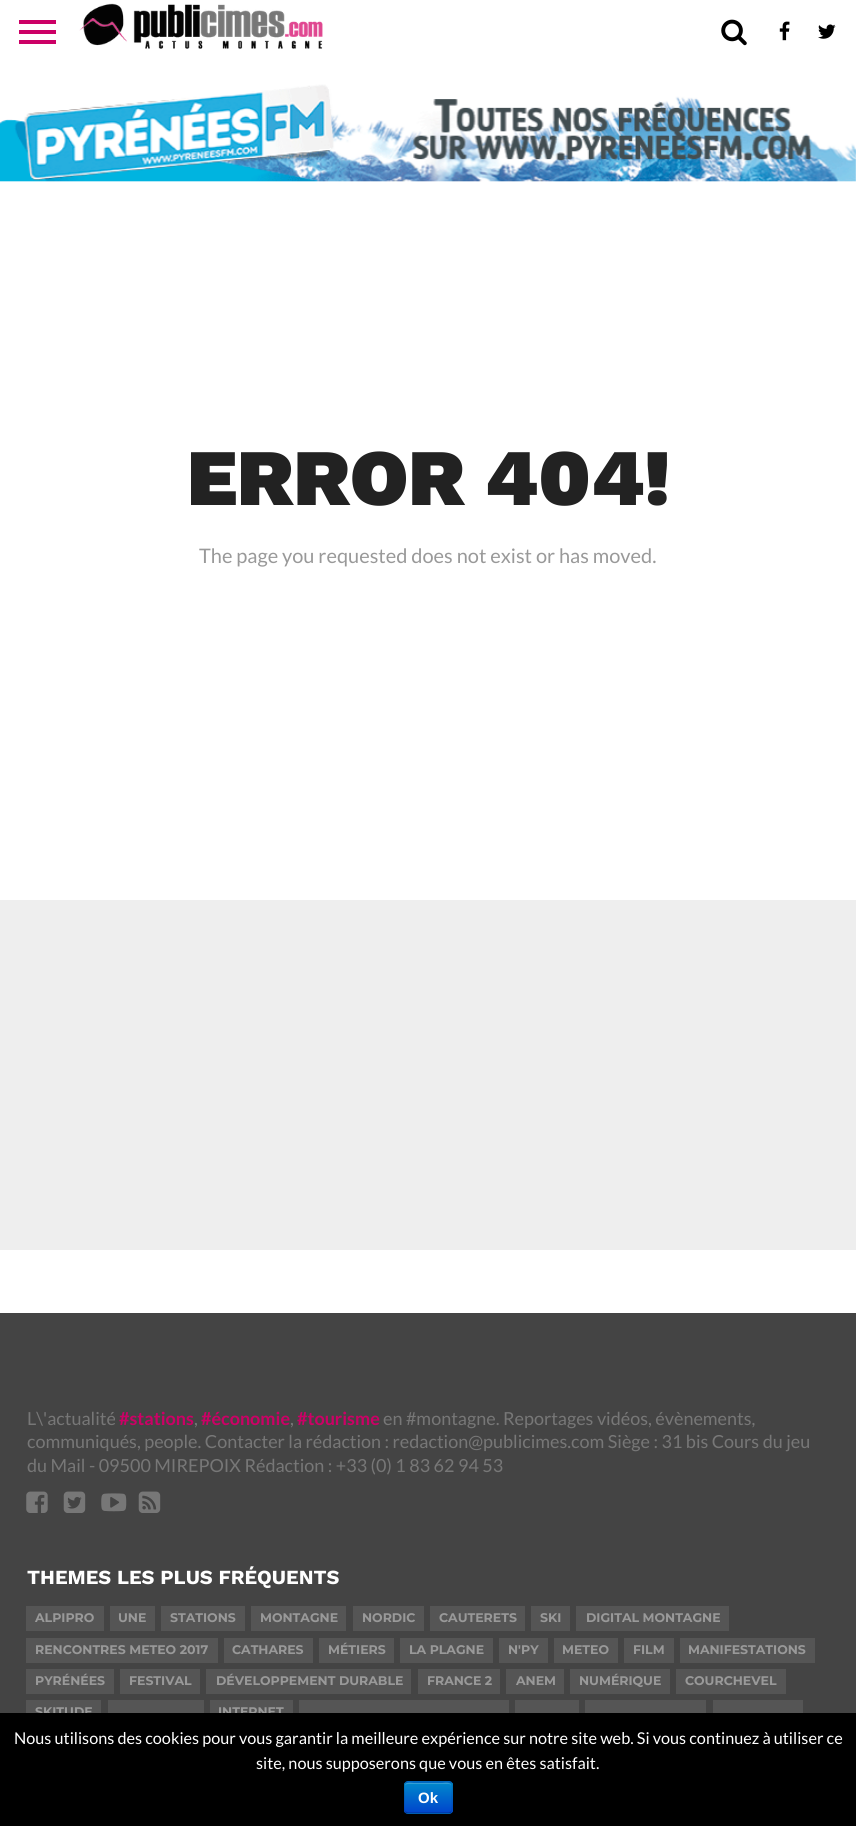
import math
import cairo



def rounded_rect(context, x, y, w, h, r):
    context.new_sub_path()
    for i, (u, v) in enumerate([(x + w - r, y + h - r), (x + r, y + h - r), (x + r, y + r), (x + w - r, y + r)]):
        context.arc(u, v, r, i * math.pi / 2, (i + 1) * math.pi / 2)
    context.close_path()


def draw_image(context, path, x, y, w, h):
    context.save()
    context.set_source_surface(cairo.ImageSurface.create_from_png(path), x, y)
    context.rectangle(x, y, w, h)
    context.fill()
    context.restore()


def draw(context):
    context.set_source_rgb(1, 1, 1)
    context.paint()
    context.set_source_rgb(204 / 255, 0, 102 / 255)
    context.rectangle(19, 20, 37, 4)
    context.fill()
    context.rectangle(19, 30, 37, 4)
    context.fill()
    context.rectangle(19, 40, 37, 4)
    context.fill()
    draw_image(context, "images/1.png", 79, 3, 244, 46)
    draw_image(context, "images/2.png", 721, 19, 26, 27)
    draw_image(context, "images/3.png", 779, 21, 11, 20)
    draw_image(context, "images/4.png", 818, 24, 18, 15)
    draw_image(context, "images/5.png", 0, 81, 856, 101)
    context.set_source_rgb(238 / 255, 238 / 255, 238 / 255)
    context.rectangle(0, 900, 856, 350)
    context.fill()
    context.set_source_rgb(68 / 255, 68 / 255, 68 / 255)
    context.rectangle(0, 1313, 856, 400)
    context.fill()
    draw_image(context, "images/6.png", 26, 1491, 22, 22)
    draw_image(context, "images/7.png", 63, 1491, 23, 22)
    draw_image(context, "images/8.png", 101, 1493, 26, 19)
    draw_image(context, "images/9.png", 138, 1491, 23, 22)
    context.set_source_rgb(85 / 255, 85 / 255, 85 / 255)
    context.rectangle(26, 1606, 78, 25)
    context.fill()
    context.rectangle(110, 1606, 45, 25)
    context.fill()
    context.rectangle(161, 1606, 84, 25)
    context.fill()
    context.rectangle(251, 1606, 95, 25)
    context.fill()
    context.rectangle(353, 1606, 71, 25)
    context.fill()
    context.rectangle(430, 1606, 95, 25)
    context.fill()
    context.rectangle(531, 1606, 39, 25)
    context.fill()
    context.rectangle(576, 1606, 153, 25)
    context.fill()
    context.rectangle(26, 1638, 192, 25)
    context.fill()
    context.rectangle(224, 1638, 89, 25)
    context.fill()
    context.rectangle(319, 1638, 75, 25)
    context.fill()
    context.rectangle(400, 1638, 93, 25)
    context.fill()
    context.rectangle(499, 1638, 49, 25)
    context.fill()
    context.rectangle(554, 1638, 64, 25)
    context.fill()
    context.rectangle(624, 1638, 50, 25)
    context.fill()
    context.rectangle(680, 1638, 135, 25)
    context.fill()
    context.rectangle(26, 1669, 88, 25)
    context.fill()
    context.rectangle(120, 1669, 80, 25)
    context.fill()
    context.rectangle(206, 1669, 205, 25)
    context.fill()
    context.rectangle(418, 1669, 82, 25)
    context.fill()
    context.rectangle(506, 1669, 58, 25)
    context.fill()
    context.rectangle(570, 1669, 100, 25)
    context.fill()
    context.rectangle(676, 1669, 110, 25)
    context.fill()
    context.rectangle(26, 1700, 75, 13)
    context.fill()
    context.rectangle(108, 1700, 96, 13)
    context.fill()
    context.rectangle(210, 1700, 83, 13)
    context.fill()
    context.rectangle(299, 1700, 210, 13)
    context.fill()
    context.rectangle(515, 1700, 64, 13)
    context.fill()
    context.rectangle(585, 1700, 121, 13)
    context.fill()
    context.rectangle(713, 1700, 90, 13)
    context.fill()
    context.select_font_face("Work Sans Black")
    context.set_font_size(80)
    context.set_source_rgb(34 / 255, 34 / 255, 34 / 255)
    context.move_to(187, 505)
    context.show_text("ERROR 404!")
    context.select_font_face("Lato")
    context.set_font_size(20)
    context.set_source_rgb(153 / 255, 153 / 255, 153 / 255)
    context.move_to(199, 563)
    context.show_text("The page you requested does not exist or has moved.")
    context.set_font_size(18)
    context.set_source_rgb(119 / 255, 119 / 255, 119 / 255)
    context.move_to(27, 1425)
    context.show_text("L\\'actualité")
    context.select_font_face("Lato", cairo.FontSlant.NORMAL, cairo.FontWeight.BOLD)
    context.set_source_rgb(204 / 255, 0, 102 / 255)
    context.move_to(119, 1425)
    context.show_text("#stations")
    context.select_font_face("Lato")
    context.set_source_rgb(119 / 255, 119 / 255, 119 / 255)
    context.move_to(194, 1425)
    context.show_text(",")
    context.select_font_face("Lato", cairo.FontSlant.NORMAL, cairo.FontWeight.BOLD)
    context.set_source_rgb(204 / 255, 0, 102 / 255)
    context.move_to(201, 1425)
    context.show_text("#économie")
    context.select_font_face("Lato")
    context.set_source_rgb(119 / 255, 119 / 255, 119 / 255)
    context.move_to(290, 1425)
    context.show_text(",")
    context.select_font_face("Lato", cairo.FontSlant.NORMAL, cairo.FontWeight.BOLD)
    context.set_source_rgb(204 / 255, 0, 102 / 255)
    context.move_to(297, 1425)
    context.show_text("#tourisme")
    context.select_font_face("Lato")
    context.set_source_rgb(119 / 255, 119 / 255, 119 / 255)
    context.move_to(383, 1425)
    context.show_text("en #montagne. Reportages vidéos, évènements,")
    context.move_to(27, 1448)
    context.show_text("communiqués, people. Contacter la rédaction : redaction@publicimes.com Siège : 31 bis Cours du jeu")
    context.move_to(27, 1472)
    context.show_text("du Mail - 09500 MIREPOIX Rédaction : +33 (0) 1 83 62 94 53")
    context.select_font_face("Work Sans", cairo.FontSlant.NORMAL, cairo.FontWeight.BOLD)
    context.set_font_size(20)
    context.set_source_rgb(1, 1, 1)
    context.move_to(27, 1584)
    context.show_text("THEMES LES PLUS FRÉQUENTS")
    context.select_font_face("Montserrat", cairo.FontSlant.NORMAL, cairo.FontWeight.BOLD)
    context.set_font_size(12.5)
    context.set_source_rgb(153 / 255, 153 / 255, 153 / 255)
    context.move_to(35, 1622)
    context.show_text("ALPIPRO")
    context.move_to(118, 1622)
    context.show_text("UNE")
    context.move_to(170, 1622)
    context.show_text("STATIONS")
    context.move_to(260, 1622)
    context.show_text("MONTAGNE")
    context.move_to(362, 1622)
    context.show_text("NORDIC")
    context.move_to(439, 1622)
    context.show_text("CAUTERETS")
    context.move_to(540, 1622)
    context.show_text("SKI")
    context.move_to(586, 1622)
    context.show_text("DIGITAL MONTAGNE")
    context.move_to(35, 1654)
    context.show_text("RENCONTRES METEO 2017")
    context.move_to(232, 1654)
    context.show_text("CATHARES")
    context.move_to(328, 1654)
    context.show_text("MÉTIERS")
    context.move_to(409, 1654)
    context.show_text("LA PLAGNE")
    context.move_to(508, 1654)
    context.show_text("N'PY")
    context.move_to(562, 1654)
    context.show_text("METEO")
    context.move_to(633, 1654)
    context.show_text("FILM")
    context.move_to(688, 1654)
    context.show_text("MANIFESTATIONS")
    context.move_to(35, 1685)
    context.show_text("PYRÉNÉES")
    context.move_to(129, 1685)
    context.show_text("FESTIVAL")
    context.move_to(216, 1685)
    context.show_text("DÉVELOPPEMENT DURABLE")
    context.move_to(427, 1685)
    context.show_text("FRANCE 2")
    context.move_to(516, 1685)
    context.show_text("ANEM")
    context.move_to(579, 1685)
    context.show_text("NUMÉRIQUE")
    context.move_to(685, 1685)
    context.show_text("COURCHEVEL")
    context.move_to(35, 1716)
    context.show_text("SKITUDE")
    context.move_to(218, 1716)
    context.show_text("INTERNET")
    context.set_source_rgb(0, 0, 0)
    context.rectangle(0, 1713, 856, 113)
    context.fill()
    context.select_font_face("Lato")
    context.set_font_size(16.25)
    context.set_source_rgb(1, 1, 1)
    context.move_to(14, 1744)
    context.show_text("Nous utilisons des cookies pour vous garantir la meilleure expérience sur notre site web. Si vous continuez à utiliser ce")
    context.move_to(256, 1769)
    context.show_text("site, nous supposerons que vous en êtes satisfait.")
    context.set_source_rgb(0, 109 / 255, 204 / 255)
    rounded_rect(context, 404, 1781, 49, 33, 4)
    context.fill()
    context.save()
    rounded_rect(context, 404, 1781, 49, 33, 4)
    context.clip()
    gradient = cairo.LinearGradient(428, 1783, 428, 1813)
    gradient.add_color_stop_rgba(0, 0, 136 / 255, 204 / 255, 1)
    gradient.add_color_stop_rgba(1, 0, 68 / 255, 204 / 255, 1)
    context.set_source(gradient)
    context.rectangle(404, 1783, 49, 30)
    context.fill()
    context.restore()
    context.set_source_rgb(51 / 255, 159 / 255, 214 / 255)
    context.new_path()
    context.move_to(408, 1784)
    context.line_to(449, 1784)
    context.curve_to(450, 1784, 451, 1785, 451, 1786)
    context.curve_to(451, 1781, 444, 1783, 442, 1783)
    context.line_to(414, 1783)
    context.curve_to(412, 1783, 405, 1781, 405, 1786)
    context.curve_to(405, 1785, 406, 1784, 408, 1784)
    context.close_path()
    context.fill()
    context.new_path()
    context.move_to(451, 1812)
    context.line_to(449, 1813)
    context.line_to(407.5, 1813)
    context.line_to(405.5, 1812)
    context.set_source_rgba(0, 0, 0, 0.25)
    context.set_line_width(1.2)
    context.stroke()
    context.new_path()
    context.move_to(405.5, 1812)
    context.curve_to(403, 1810, 404.5, 1800.5, 404.5, 1797.5)
    context.curve_to(404.5, 1782.5, 401, 1782, 414.5, 1782)
    context.line_to(442, 1782)
    context.curve_to(455.5, 1782, 452, 1782.5, 452, 1797.5)
    context.curve_to(452, 1800.5, 453, 1810, 451, 1812)
    context.set_source_rgba(0, 0, 0, 0.1)
    context.stroke()
    context.select_font_face("Liberation Sans", cairo.FontSlant.NORMAL, cairo.FontWeight.BOLD)
    context.set_font_size(15)
    context.set_source_rgb(1, 1, 1)
    context.move_to(418, 1803)
    context.show_text("Ok")


surface = cairo.ImageSurface(cairo.Format.RGB24, 856, 1826)
context = cairo.Context(surface)
options = cairo.FontOptions()
options.set_hint_metrics(cairo.HintMetrics.OFF)
options.set_hint_style(cairo.HintStyle.NONE)
context.set_font_options(options)
context.set_miter_limit(4)
draw(context)
surface.write_to_png("out.png")
